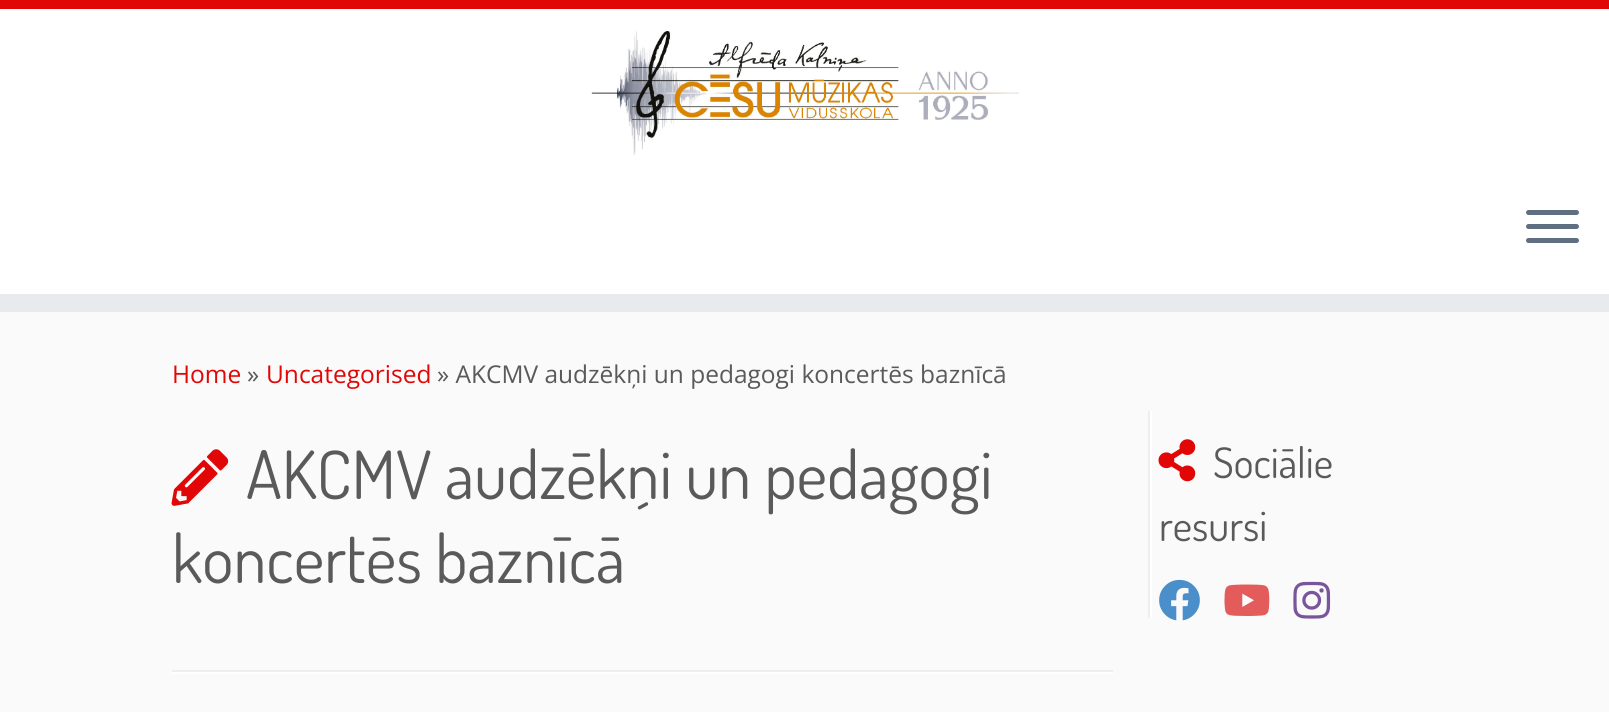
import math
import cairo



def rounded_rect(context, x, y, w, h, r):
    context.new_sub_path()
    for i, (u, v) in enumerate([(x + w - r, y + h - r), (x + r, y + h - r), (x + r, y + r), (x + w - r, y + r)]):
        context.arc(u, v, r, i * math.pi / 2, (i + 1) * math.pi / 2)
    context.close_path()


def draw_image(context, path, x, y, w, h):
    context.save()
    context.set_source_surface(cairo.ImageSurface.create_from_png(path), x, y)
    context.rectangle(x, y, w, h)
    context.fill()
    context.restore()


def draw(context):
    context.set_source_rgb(250 / 255, 250 / 255, 250 / 255)
    context.paint()
    context.set_source_rgb(1, 1, 1)
    context.rectangle(0, 9, 1609, 285)
    context.fill()
    context.set_source_rgb(225 / 255, 7 / 255, 7 / 255)
    context.rectangle(0, 0, 1609, 9)
    context.fill()
    context.set_source_rgb(233 / 255, 234 / 255, 238 / 255)
    context.rectangle(0, 294, 1609, 18)
    context.fill()
    draw_image(context, "images/1.png", 591, 30, 428, 126)
    context.set_source_rgb(95 / 255, 111 / 255, 129 / 255)
    rounded_rect(context, 1526, 210, 53, 5, 2.5)
    context.fill()
    rounded_rect(context, 1526, 224, 53, 5, 2.5)
    context.fill()
    rounded_rect(context, 1526, 238, 53, 5, 2.5)
    context.fill()
    draw_image(context, "images/2.png", 171, 449, 58, 57)
    context.set_source_rgb(238 / 255, 238 / 255, 238 / 255)
    context.rectangle(172, 670, 941, 2)
    context.fill()
    context.set_source_rgb(1, 1, 1)
    context.rectangle(172, 672, 941, 2)
    context.fill()
    context.set_source_rgb(238 / 255, 238 / 255, 238 / 255)
    context.rectangle(1148, 411, 2, 207)
    context.fill()
    context.set_source_rgb(1, 1, 1)
    context.rectangle(1150, 411, 2, 207)
    context.fill()
    draw_image(context, "images/3.png", 1158, 439, 38, 43)
    draw_image(context, "images/4.png", 1159, 579, 41, 42)
    draw_image(context, "images/5.png", 1224, 584, 46, 32)
    draw_image(context, "images/6.png", 1293, 581, 38, 38)
    context.select_font_face("Open Sans")
    context.set_font_size(24.5)
    context.set_source_rgb(225 / 255, 7 / 255, 7 / 255)
    context.move_to(172, 383)
    context.show_text("Home")
    context.set_source_rgb(90 / 255, 90 / 255, 90 / 255)
    context.move_to(247, 383)
    context.show_text("»")
    context.set_source_rgb(225 / 255, 7 / 255, 7 / 255)
    context.move_to(266, 383)
    context.show_text("Uncategorised")
    context.set_source_rgb(90 / 255, 90 / 255, 90 / 255)
    context.move_to(437, 383)
    context.show_text("» AKCMV audzēkņi un pedagogi koncertēs baznīcā")
    context.select_font_face("Dosis")
    context.set_font_size(66.5)
    context.move_to(246, 499)
    context.show_text("AKCMV audzēkņi un pedagogi")
    context.move_to(172, 583)
    context.show_text("koncertēs baznīcā")
    context.set_font_size(42)
    context.move_to(1213, 478)
    context.show_text("Sociālie")
    context.move_to(1159, 541)
    context.show_text("resursi")


surface = cairo.ImageSurface(cairo.Format.RGB24, 1609, 712)
context = cairo.Context(surface)
options = cairo.FontOptions()
options.set_hint_metrics(cairo.HintMetrics.OFF)
options.set_hint_style(cairo.HintStyle.NONE)
context.set_font_options(options)
context.set_miter_limit(4)
draw(context)
surface.write_to_png("out.png")
